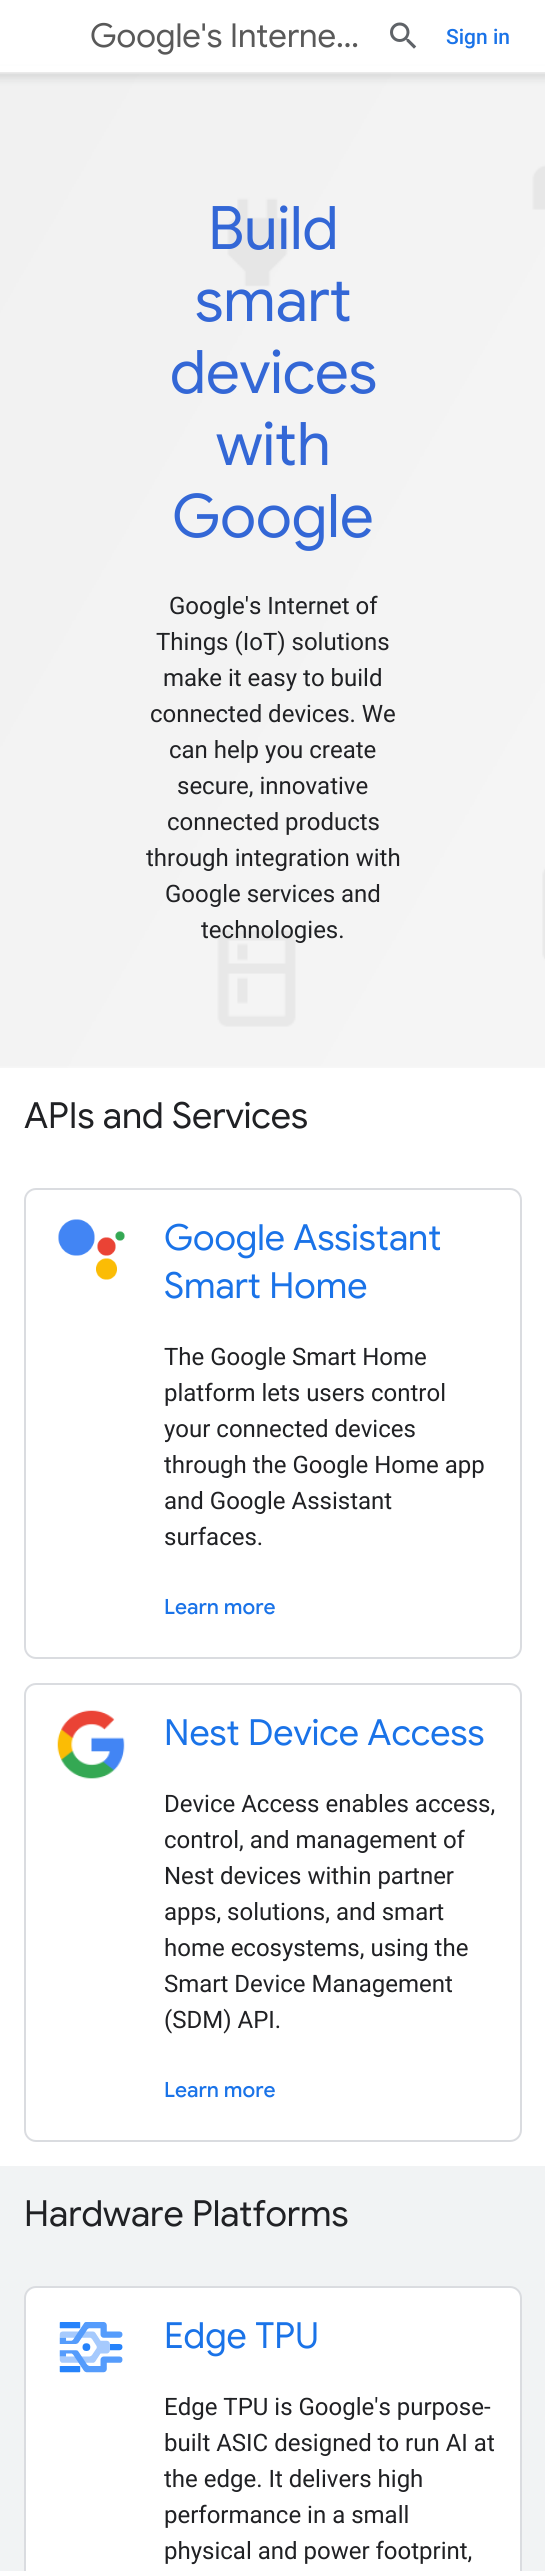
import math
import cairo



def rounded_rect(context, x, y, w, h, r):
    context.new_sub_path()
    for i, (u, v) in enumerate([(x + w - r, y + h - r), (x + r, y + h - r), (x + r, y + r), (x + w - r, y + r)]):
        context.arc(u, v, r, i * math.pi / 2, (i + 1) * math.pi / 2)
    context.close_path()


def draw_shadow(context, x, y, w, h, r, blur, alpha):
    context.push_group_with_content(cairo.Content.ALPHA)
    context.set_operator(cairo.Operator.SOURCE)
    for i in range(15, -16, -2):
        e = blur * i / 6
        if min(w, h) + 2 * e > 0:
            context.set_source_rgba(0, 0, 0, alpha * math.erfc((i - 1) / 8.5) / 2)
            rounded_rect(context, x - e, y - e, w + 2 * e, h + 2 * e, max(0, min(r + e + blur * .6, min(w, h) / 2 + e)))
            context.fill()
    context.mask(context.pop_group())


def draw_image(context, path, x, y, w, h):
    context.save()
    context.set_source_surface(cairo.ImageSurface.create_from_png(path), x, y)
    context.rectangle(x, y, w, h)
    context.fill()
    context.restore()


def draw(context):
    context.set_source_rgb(1, 1, 1)
    context.paint()
    draw_image(context, "images/2.png", 0, 72, 545, 996)
    context.set_source_rgb(60 / 255, 64 / 255, 67 / 255)
    draw_shadow(context, -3, 72, 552, 6, 0, 4.5, 0.15)
    context.set_source_rgb(1, 1, 1)
    context.rectangle(0, 66, 545, 6)
    context.fill()
    draw_image(context, "images/1.png", 390, 22, 27, 27)
    rounded_rect(context, 25, 1189, 496, 469, 11)
    context.set_source_rgb(218 / 255, 220 / 255, 224 / 255)
    context.stroke()
    draw_image(context, "images/3.png", 58, 1219, 67, 61)
    rounded_rect(context, 25, 1684, 496, 457, 11)
    context.stroke()
    draw_image(context, "images/4.png", 57, 1710, 68, 69)
    context.set_source_rgb(241 / 255, 243 / 255, 244 / 255)
    context.rectangle(0, 2166, 545, 405)
    context.fill()
    context.set_source_rgb(1, 1, 1)
    rounded_rect(context, 25, 2287, 496, 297, 11)
    context.fill_preserve()
    context.set_source_rgb(218 / 255, 220 / 255, 224 / 255)
    context.stroke()
    draw_image(context, "images/5.png", 59, 2322, 64, 51)
    context.select_font_face("Google Sans")
    context.set_font_size(33)
    context.set_source_rgb(89 / 255, 89 / 255, 89 / 255)
    context.move_to(90, 47)
    context.show_text("Google's Interne…")
    context.select_font_face("Roboto Medium")
    context.set_font_size(21)
    context.set_source_rgb(26 / 255, 115 / 255, 232 / 255)
    context.move_to(446, 44)
    context.show_text("Sign in")
    context.select_font_face("Google Sans")
    context.set_font_size(60)
    context.set_source_rgb(51 / 255, 103 / 255, 214 / 255)
    context.move_to(208, 249)
    context.show_text("Build")
    context.move_to(195, 321)
    context.show_text("smart")
    context.move_to(170, 393)
    context.show_text("devices")
    context.move_to(216, 465)
    context.show_text("with")
    context.move_to(172, 537)
    context.show_text("Google")
    context.select_font_face("Roboto")
    context.set_font_size(24)
    context.set_source_rgb(32 / 255, 33 / 255, 36 / 255)
    context.move_to(169, 614)
    context.show_text("Google's Internet of")
    context.move_to(156, 650)
    context.show_text("Things (IoT) solutions")
    context.move_to(163, 686)
    context.show_text("make it easy to build")
    context.move_to(150, 722)
    context.show_text("connected devices. We")
    context.move_to(169, 758)
    context.show_text("can help you create")
    context.move_to(177, 794)
    context.show_text("secure, innovative")
    context.move_to(167, 830)
    context.show_text("connected products")
    context.move_to(146, 866)
    context.show_text("through integration with")
    context.move_to(165, 902)
    context.show_text("Google services and")
    context.move_to(201, 938)
    context.show_text("technologies.")
    context.select_font_face("Google Sans")
    context.set_font_size(36)
    context.move_to(24, 1128)
    context.show_text("APIs and Services")
    context.set_source_rgb(26 / 255, 115 / 255, 232 / 255)
    context.move_to(164, 1250)
    context.show_text("Google Assistant")
    context.move_to(164, 1298)
    context.show_text("Smart Home")
    context.select_font_face("Roboto")
    context.set_font_size(24)
    context.set_source_rgb(32 / 255, 33 / 255, 36 / 255)
    context.move_to(164, 1365)
    context.show_text("The Google Smart Home")
    context.move_to(164, 1401)
    context.show_text("platform lets users control")
    context.move_to(164, 1437)
    context.show_text("your connected devices")
    context.move_to(164, 1473)
    context.show_text("through the Google Home app")
    context.move_to(164, 1509)
    context.show_text("and Google Assistant")
    context.move_to(164, 1545)
    context.show_text("surfaces.")
    context.select_font_face("Google Sans Medium")
    context.set_font_size(21)
    context.set_source_rgb(26 / 255, 115 / 255, 232 / 255)
    context.move_to(164, 1614)
    context.show_text("Learn more")
    context.select_font_face("Google Sans")
    context.set_font_size(36)
    context.move_to(164, 1745)
    context.show_text("Nest Device Access")
    context.select_font_face("Roboto")
    context.set_font_size(24)
    context.set_source_rgb(32 / 255, 33 / 255, 36 / 255)
    context.move_to(164, 1812)
    context.show_text("Device Access enables access,")
    context.move_to(164, 1848)
    context.show_text("control, and management of")
    context.move_to(164, 1884)
    context.show_text("Nest devices within partner")
    context.move_to(164, 1920)
    context.show_text("apps, solutions, and smart")
    context.move_to(164, 1956)
    context.show_text("home ecosystems, using the")
    context.move_to(164, 1992)
    context.show_text("Smart Device Management")
    context.move_to(164, 2028)
    context.show_text("(SDM) API.")
    context.select_font_face("Google Sans Medium")
    context.set_font_size(21)
    context.set_source_rgb(26 / 255, 115 / 255, 232 / 255)
    context.move_to(164, 2097)
    context.show_text("Learn more")
    context.select_font_face("Google Sans")
    context.set_font_size(36)
    context.set_source_rgb(32 / 255, 33 / 255, 36 / 255)
    context.move_to(24, 2226)
    context.show_text("Hardware Platforms")
    context.set_source_rgb(26 / 255, 115 / 255, 232 / 255)
    context.move_to(164, 2348)
    context.show_text("Edge TPU")
    context.select_font_face("Roboto")
    context.set_font_size(24)
    context.set_source_rgb(32 / 255, 33 / 255, 36 / 255)
    context.move_to(164, 2415)
    context.show_text("Edge TPU is Google's purpose-")
    context.move_to(164, 2451)
    context.show_text("built ASIC designed to run AI at")
    context.move_to(164, 2487)
    context.show_text("the edge. It delivers high")
    context.move_to(164, 2523)
    context.show_text("performance in a small")
    context.move_to(164, 2559)
    context.show_text("physical and power footprint,")


surface = cairo.ImageSurface(cairo.Format.RGB24, 545, 2571)
context = cairo.Context(surface)
options = cairo.FontOptions()
options.set_hint_metrics(cairo.HintMetrics.OFF)
options.set_hint_style(cairo.HintStyle.NONE)
context.set_font_options(options)
context.set_miter_limit(4)
draw(context)
surface.write_to_png("out.png")
